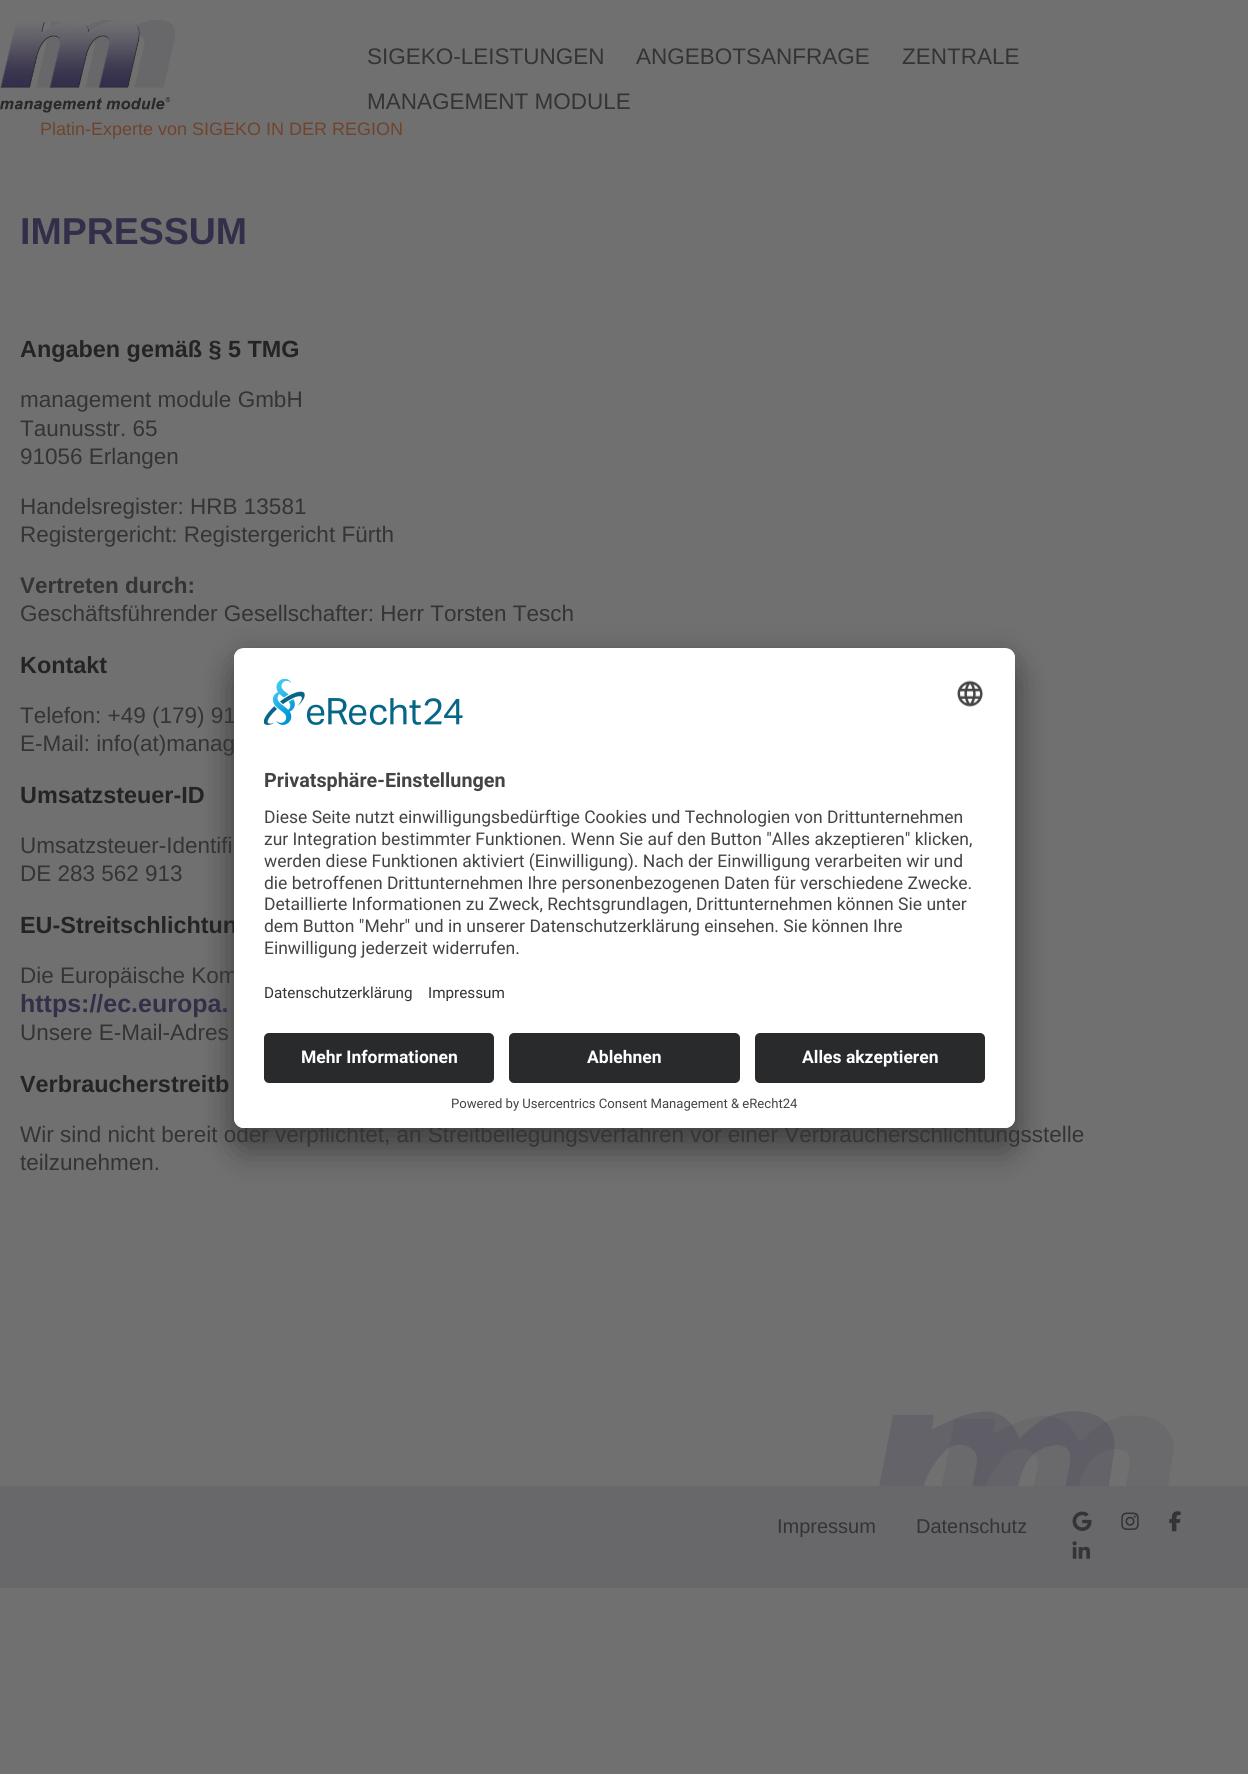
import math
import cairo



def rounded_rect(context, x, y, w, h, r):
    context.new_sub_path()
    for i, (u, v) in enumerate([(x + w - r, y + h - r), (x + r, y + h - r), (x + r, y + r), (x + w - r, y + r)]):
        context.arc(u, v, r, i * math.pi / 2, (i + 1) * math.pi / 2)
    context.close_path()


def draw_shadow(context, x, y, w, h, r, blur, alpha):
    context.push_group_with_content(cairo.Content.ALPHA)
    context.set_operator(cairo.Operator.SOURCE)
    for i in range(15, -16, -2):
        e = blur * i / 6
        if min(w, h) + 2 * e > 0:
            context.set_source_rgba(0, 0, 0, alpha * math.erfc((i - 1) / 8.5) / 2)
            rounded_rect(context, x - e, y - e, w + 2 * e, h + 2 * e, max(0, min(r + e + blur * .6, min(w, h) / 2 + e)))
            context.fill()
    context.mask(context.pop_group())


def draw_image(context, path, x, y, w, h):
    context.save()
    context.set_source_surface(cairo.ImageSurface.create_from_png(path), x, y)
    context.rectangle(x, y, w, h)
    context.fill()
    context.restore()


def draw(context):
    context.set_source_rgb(112 / 255, 112 / 255, 112 / 255)
    context.paint()
    draw_image(context, "images/1.png", 0, 20, 175, 93)
    draw_image(context, "images/2.png", 879, 1411, 295, 75)
    context.set_source_rgb(104 / 255, 104 / 255, 106 / 255)
    context.rectangle(0, 1486, 1248, 102)
    context.fill()
    draw_image(context, "images/3.png", 1072, 1511, 20, 20)
    draw_image(context, "images/4.png", 1121, 1512, 18, 18)
    draw_image(context, "images/5.png", 1169, 1511, 12, 21)
    draw_image(context, "images/6.png", 1072, 1541, 18, 18)
    context.set_source_rgb(0, 0, 0)
    draw_shadow(context, 234, 673, 781, 480, 10, 17.5, 0.3)
    draw_shadow(context, 234, 654, 781, 480, 10, 16, 0.22)
    context.select_font_face("Liberation Sans")
    context.set_font_size(22.5)
    context.set_source_rgb(50 / 255, 52 / 255, 53 / 255)
    context.move_to(367, 64)
    context.show_text("SIGEKO-LEISTUNGEN")
    context.move_to(636, 64)
    context.show_text("ANGEBOTSANFRAGE")
    context.move_to(902, 64)
    context.show_text("ZENTRALE")
    context.move_to(367, 109)
    context.show_text("MANAGEMENT MODULE")
    context.set_font_size(18)
    context.set_source_rgb(112 / 255, 67 / 255, 44 / 255)
    context.move_to(40, 135)
    context.show_text("Platin-Experte von SIGEKO IN DER REGION")
    context.select_font_face("Liberation Sans", cairo.FontSlant.NORMAL, cairo.FontWeight.BOLD)
    context.set_font_size(37.5)
    context.set_source_rgb(51 / 255, 47 / 255, 75 / 255)
    context.move_to(20, 244)
    context.show_text("IMPRESSUM")
    context.set_font_size(23.4)
    context.set_source_rgb(36 / 255, 36 / 255, 36 / 255)
    context.move_to(20, 357)
    context.show_text("Angaben gemäß § 5 TMG")
    context.select_font_face("Liberation Sans")
    context.set_font_size(22.5)
    context.set_source_rgb(50 / 255, 52 / 255, 53 / 255)
    context.move_to(20, 407)
    context.show_text("management module GmbH")
    context.move_to(20, 436)
    context.show_text("Taunusstr. 65")
    context.move_to(20, 464)
    context.show_text("91056 Erlangen")
    context.move_to(20, 514)
    context.show_text("Handelsregister: HRB 13581")
    context.move_to(20, 542)
    context.show_text("Registergericht: Registergericht Fürth")
    context.select_font_face("Liberation Sans", cairo.FontSlant.NORMAL, cairo.FontWeight.BOLD)
    context.move_to(20, 593)
    context.show_text("Vertreten durch:")
    context.select_font_face("Liberation Sans")
    context.move_to(20, 621)
    context.show_text("Geschäftsführender Gesellschafter: Herr Torsten Tesch")
    context.select_font_face("Liberation Sans", cairo.FontSlant.NORMAL, cairo.FontWeight.BOLD)
    context.set_font_size(23.4)
    context.set_source_rgb(36 / 255, 36 / 255, 36 / 255)
    context.move_to(20, 673)
    context.show_text("Kontakt")
    context.select_font_face("Liberation Sans")
    context.set_font_size(22.5)
    context.set_source_rgb(50 / 255, 52 / 255, 53 / 255)
    context.move_to(20, 723)
    context.show_text("Telefon: +49 (179) 91")
    context.move_to(20, 751)
    context.show_text("E-Mail: info(at)manag")
    context.select_font_face("Liberation Sans", cairo.FontSlant.NORMAL, cairo.FontWeight.BOLD)
    context.set_font_size(23.4)
    context.set_source_rgb(36 / 255, 36 / 255, 36 / 255)
    context.move_to(20, 803)
    context.show_text("Umsatzsteuer-ID")
    context.select_font_face("Liberation Sans")
    context.set_font_size(22.5)
    context.set_source_rgb(50 / 255, 52 / 255, 53 / 255)
    context.move_to(20, 853)
    context.show_text("Umsatzsteuer-Identifi")
    context.move_to(20, 881)
    context.show_text("DE 283 562 913")
    context.select_font_face("Liberation Sans", cairo.FontSlant.NORMAL, cairo.FontWeight.BOLD)
    context.set_font_size(23.4)
    context.set_source_rgb(36 / 255, 36 / 255, 36 / 255)
    context.move_to(20, 933)
    context.show_text("EU-Streitschlichtun")
    context.select_font_face("Liberation Sans")
    context.set_font_size(22.5)
    context.set_source_rgb(50 / 255, 52 / 255, 53 / 255)
    context.move_to(20, 983)
    context.show_text("Die Europäische Kom")
    context.select_font_face("Liberation Sans", cairo.FontSlant.NORMAL, cairo.FontWeight.BOLD)
    context.set_font_size(25)
    context.set_source_rgb(51 / 255, 47 / 255, 75 / 255)
    context.move_to(20, 1012)
    context.show_text("https://ec.europa.")
    context.select_font_face("Liberation Sans")
    context.set_font_size(22.5)
    context.set_source_rgb(50 / 255, 52 / 255, 53 / 255)
    context.move_to(20, 1040)
    context.show_text("Unsere E-Mail-Adres")
    context.select_font_face("Liberation Sans", cairo.FontSlant.NORMAL, cairo.FontWeight.BOLD)
    context.set_font_size(23.4)
    context.set_source_rgb(36 / 255, 36 / 255, 36 / 255)
    context.move_to(20, 1092)
    context.show_text("Verbraucherstreitb")
    context.select_font_face("Liberation Sans")
    context.set_font_size(22.5)
    context.set_source_rgb(50 / 255, 52 / 255, 53 / 255)
    context.move_to(20, 1142)
    context.show_text("Wir sind nicht bereit oder verpflichtet, an Streitbeilegungsverfahren vor einer Verbraucherschlichtungsstelle")
    context.move_to(20, 1170)
    context.show_text("teilzunehmen.")
    context.set_font_size(20)
    context.move_to(777, 1533)
    context.show_text("Impressum")
    context.move_to(916, 1533)
    context.show_text("Datenschutz")
    context.set_source_rgb(1, 1, 1)
    rounded_rect(context, 234, 648, 781, 480, 10)
    context.fill()
    context.save()
    rounded_rect(context, 234, 648, 781, 480, 10)
    context.clip()
    context.new_path()
    context.move_to(244, 648)
    context.line_to(1005, 648)
    context.curve_to(1010.5, 648, 1015, 652.5, 1015, 658)
    context.line_to(1015, 1023)
    context.line_to(234, 1023)
    context.line_to(234, 658)
    context.curve_to(234, 652.5, 238.5, 648, 244, 648)
    context.close_path()
    context.clip()
    context.rectangle(234, 649, 781, 374)
    context.fill()
    context.restore()
    draw_image(context, "images/7.png", 264, 679, 199, 46)
    draw_image(context, "images/8.png", 957, 680, 27, 27)
    context.select_font_face("Roboto", cairo.FontSlant.NORMAL, cairo.FontWeight.BOLD)
    context.set_font_size(19.75)
    context.set_source_rgb(68 / 255, 68 / 255, 68 / 255)
    context.move_to(264, 787)
    context.show_text("Privatsphäre-Einstellungen")
    context.select_font_face("Roboto")
    context.set_font_size(17.5)
    context.move_to(264, 823)
    context.show_text("Diese Seite nutzt einwilligungsbedürftige Cookies und Technologien von Drittunternehmen")
    context.move_to(264, 845)
    context.show_text("zur Integration bestimmter Funktionen. Wenn Sie auf den Button \"Alles akzeptieren\" klicken,")
    context.move_to(264, 867)
    context.show_text("werden diese Funktionen aktiviert (Einwilligung). Nach der Einwilligung verarbeiten wir und")
    context.move_to(264, 889)
    context.show_text("die betroffenen Drittunternehmen Ihre personenbezogenen Daten für verschiedene Zwecke.")
    context.move_to(264, 910)
    context.show_text("Detaillierte Informationen zu Zweck, Rechtsgrundlagen, Drittunternehmen können Sie unter")
    context.move_to(264, 932)
    context.show_text("dem Button \"Mehr\" und in unserer Datenschutzerklärung einsehen. Sie können Ihre")
    context.move_to(264, 954)
    context.show_text("Einwilligung jederzeit widerrufen.")
    context.set_font_size(15.25)
    context.set_source_rgb(50 / 255, 52 / 255, 53 / 255)
    context.move_to(264, 998)
    context.show_text("Datenschutzerklärung")
    context.move_to(428, 998)
    context.show_text("Impressum")
    context.set_source_rgb(1, 1, 1)
    context.new_path()
    context.move_to(234, 1023)
    context.line_to(1015, 1023)
    context.line_to(1015, 1118)
    context.curve_to(1015, 1123.5, 1010.5, 1128, 1005, 1128)
    context.line_to(244, 1128)
    context.curve_to(238.5, 1128, 234, 1123.5, 234, 1118)
    context.close_path()
    context.fill()
    context.set_source_rgb(41 / 255, 42 / 255, 43 / 255)
    rounded_rect(context, 264, 1033, 230, 50, 5)
    context.fill()
    context.select_font_face("Roboto", cairo.FontSlant.NORMAL, cairo.FontWeight.BOLD)
    context.set_font_size(17.5)
    context.set_source_rgb(1, 1, 1)
    context.move_to(301, 1063)
    context.show_text("Mehr Informationen")
    context.set_source_rgb(41 / 255, 42 / 255, 43 / 255)
    rounded_rect(context, 509, 1033, 231, 50, 5)
    context.fill()
    context.set_source_rgb(1, 1, 1)
    context.move_to(587, 1063)
    context.show_text("Ablehnen")
    context.set_source_rgb(41 / 255, 42 / 255, 43 / 255)
    rounded_rect(context, 755, 1033, 230, 50, 5)
    context.fill()
    context.set_source_rgb(1, 1, 1)
    context.move_to(802, 1063)
    context.show_text("Alles akzeptieren")
    context.select_font_face("Roboto")
    context.set_font_size(13.1)
    context.set_source_rgb(68 / 255, 68 / 255, 68 / 255)
    context.move_to(451, 1108)
    context.show_text("Powered by Usercentrics Consent Management & eRecht24")


surface = cairo.ImageSurface(cairo.Format.RGB24, 1248, 1774)
context = cairo.Context(surface)
options = cairo.FontOptions()
options.set_hint_metrics(cairo.HintMetrics.OFF)
options.set_hint_style(cairo.HintStyle.NONE)
context.set_font_options(options)
context.set_miter_limit(4)
draw(context)
surface.write_to_png("out.png")
